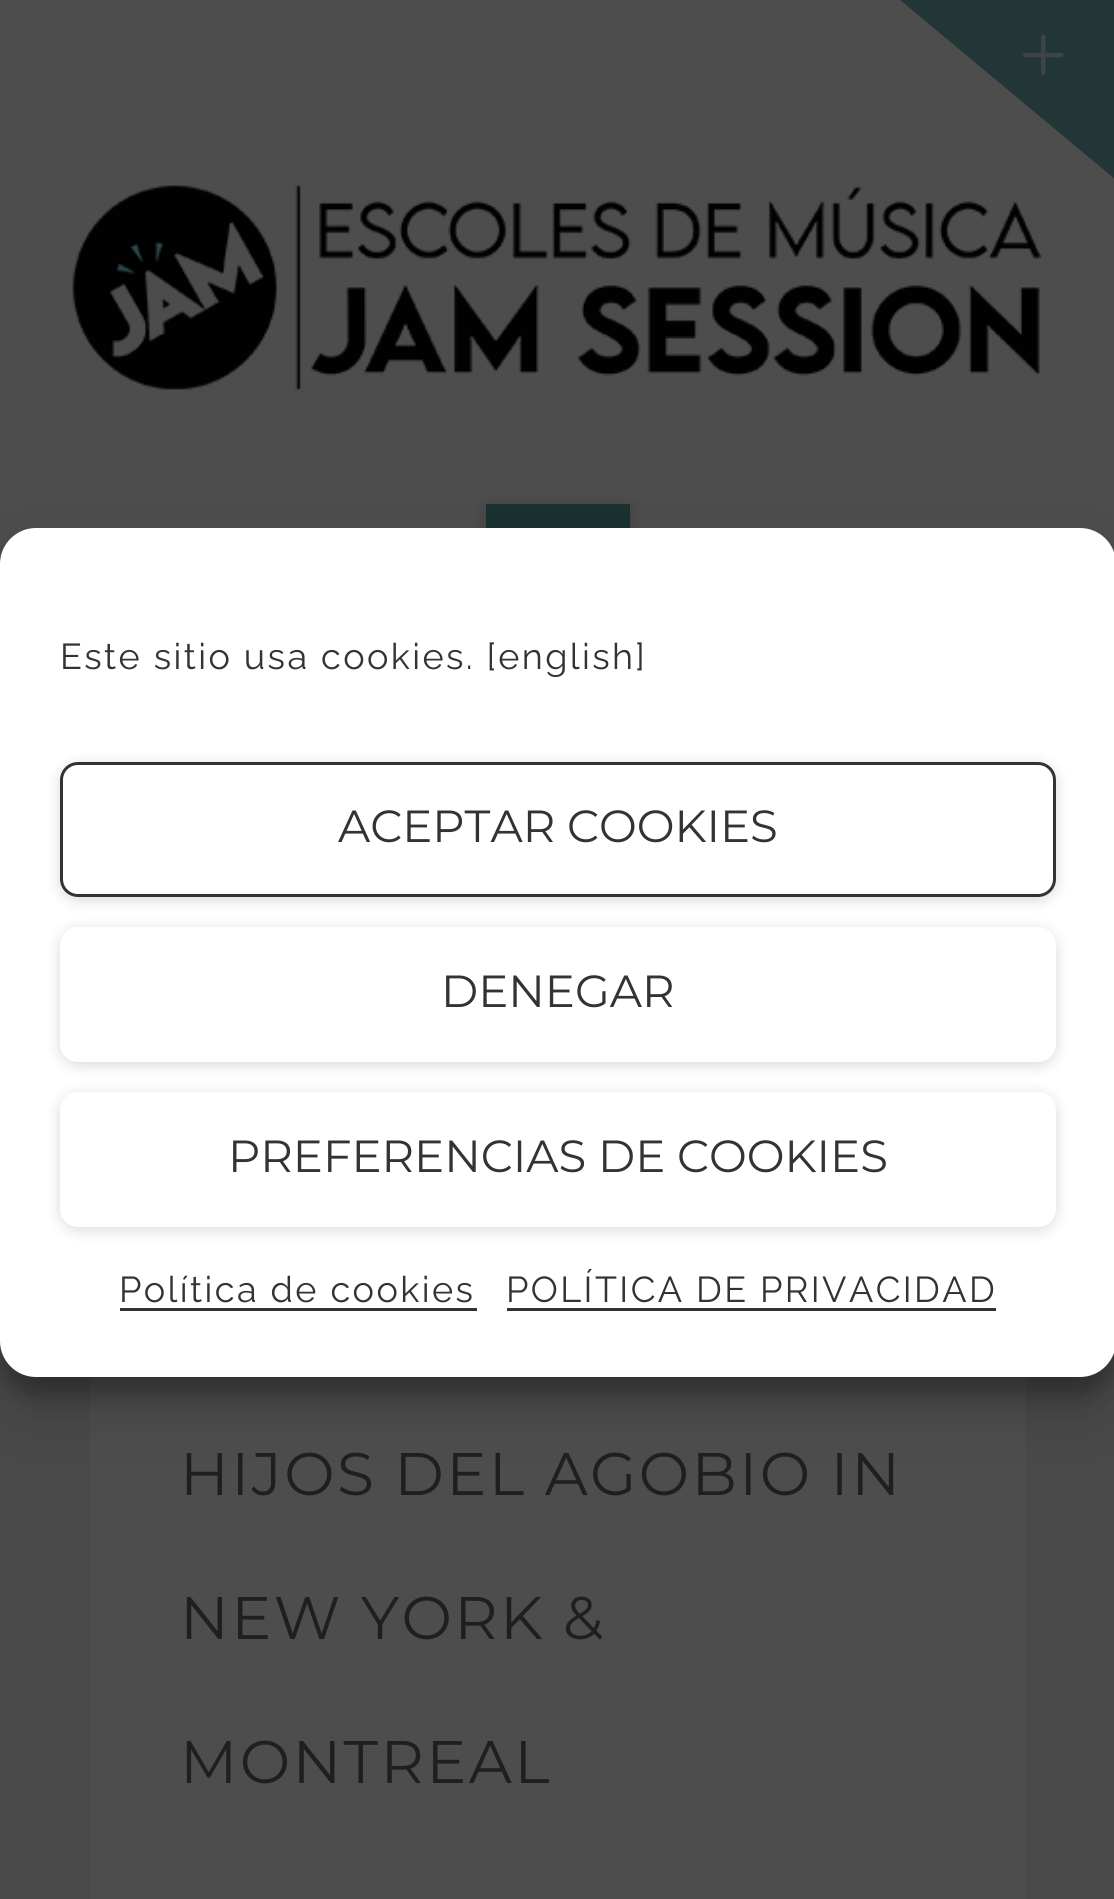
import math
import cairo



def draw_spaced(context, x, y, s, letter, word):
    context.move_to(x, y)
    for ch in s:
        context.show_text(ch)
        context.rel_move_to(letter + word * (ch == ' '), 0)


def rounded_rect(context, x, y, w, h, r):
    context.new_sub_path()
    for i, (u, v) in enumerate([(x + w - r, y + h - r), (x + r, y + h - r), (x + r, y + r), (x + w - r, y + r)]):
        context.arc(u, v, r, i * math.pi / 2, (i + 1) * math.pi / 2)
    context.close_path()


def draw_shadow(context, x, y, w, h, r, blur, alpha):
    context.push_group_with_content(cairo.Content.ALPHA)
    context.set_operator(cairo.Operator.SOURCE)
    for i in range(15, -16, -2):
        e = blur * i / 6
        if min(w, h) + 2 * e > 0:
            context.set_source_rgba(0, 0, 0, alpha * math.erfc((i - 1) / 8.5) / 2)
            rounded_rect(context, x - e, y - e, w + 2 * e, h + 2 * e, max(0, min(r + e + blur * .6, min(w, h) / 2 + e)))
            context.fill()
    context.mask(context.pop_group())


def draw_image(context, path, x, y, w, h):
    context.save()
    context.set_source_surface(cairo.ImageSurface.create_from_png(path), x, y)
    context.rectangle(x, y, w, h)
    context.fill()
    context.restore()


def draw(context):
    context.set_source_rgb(77 / 255, 77 / 255, 77 / 255)
    context.paint()
    context.set_source_rgb(35 / 255, 54 / 255, 55 / 255)
    context.new_path()
    context.move_to(900, 0)
    context.line_to(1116, 0)
    context.line_to(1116, 180)
    context.close_path()
    context.fill()
    draw_image(context, "images/1.png", 1023, 34, 41, 42)
    context.set_source_rgb(0, 0, 0)
    draw_shadow(context, 486, 507, 144, 144, 0, 7.5, 0.15)
    context.set_source_rgb(25 / 255, 49 / 255, 49 / 255)
    context.rectangle(486, 504, 144, 24)
    context.fill()
    context.set_source_rgb(73 / 255, 73 / 255, 73 / 255)
    context.rectangle(0, 1341, 1114, 558)
    context.fill()
    context.set_source_rgb(77 / 255, 77 / 255, 77 / 255)
    context.rectangle(90, 1377, 936, 522)
    context.fill()
    context.set_source_rgb(0, 0, 0)
    draw_shadow(context, 0, 546, 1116, 849, 36, 9, 0.23)
    draw_shadow(context, 0, 558, 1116, 849, 36, 30, 0.19)
    context.set_source_rgb(1, 1, 1)
    rounded_rect(context, 0, 528, 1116, 849, 36)
    context.fill()
    context.set_source_rgb(0, 0, 0)
    draw_shadow(context, 60, 765, 996, 135, 18, 7.5, 0.15)
    context.set_source_rgb(1, 1, 1)
    rounded_rect(context, 61.5, 763.5, 993, 132, 16.5)
    context.fill_preserve()
    context.set_source_rgb(51 / 255, 51 / 255, 51 / 255)
    context.set_line_width(3)
    context.stroke()
    context.set_source_rgb(0, 0, 0)
    draw_shadow(context, 60, 930, 996, 135, 18, 7.5, 0.15)
    context.set_source_rgb(1, 1, 1)
    rounded_rect(context, 61.5, 928.5, 993, 132, 16.5)
    context.fill_preserve()
    context.stroke()
    context.set_source_rgb(0, 0, 0)
    draw_shadow(context, 60, 1095, 996, 135, 18, 7.5, 0.15)
    context.set_source_rgb(1, 1, 1)
    rounded_rect(context, 61.5, 1093.5, 993, 132, 16.5)
    context.fill_preserve()
    context.stroke()
    context.set_source_rgb(51 / 255, 51 / 255, 51 / 255)
    context.rectangle(120, 1308, 357, 3)
    context.fill()
    context.rectangle(507, 1308, 489, 3)
    context.fill()
    draw_image(context, "images/2.png", 72, 185, 970, 205)
    context.select_font_face("Raleway Thin")
    context.set_font_size(36)
    draw_spaced(context, 60, 669, "Este sitio usa cookies. [english]", 2.4, 0)
    context.select_font_face("Montserrat Thin")
    context.set_font_size(45)
    context.move_to(338, 842)
    context.show_text("ACEPTAR COOKIES")
    context.move_to(441, 1007)
    context.show_text("DENEGAR")
    context.move_to(228, 1172)
    context.show_text("PREFERENCIAS DE COOKIES")
    context.select_font_face("Raleway Thin")
    context.set_font_size(36)
    draw_spaced(context, 119, 1302, "Política de cookies", 2.4, 0)
    draw_spaced(context, 506, 1302, "POLÍTICA DE PRIVACIDAD", 2.4, 0)
    context.select_font_face("Montserrat Thin")
    context.set_font_size(60)
    context.set_source_rgb(31 / 255, 31 / 255, 31 / 255)
    draw_spaced(context, 180, 1495, "HIJOS DEL AGOBIO IN", 2.4, 0)
    draw_spaced(context, 180, 1639, "NEW YORK &", 2.4, 0)
    draw_spaced(context, 180, 1783, "MONTREAL", 2.4, 0)


surface = cairo.ImageSurface(cairo.Format.RGB24, 1114, 1899)
context = cairo.Context(surface)
options = cairo.FontOptions()
options.set_hint_metrics(cairo.HintMetrics.OFF)
options.set_hint_style(cairo.HintStyle.NONE)
context.set_font_options(options)
context.set_miter_limit(4)
draw(context)
surface.write_to_png("out.png")
